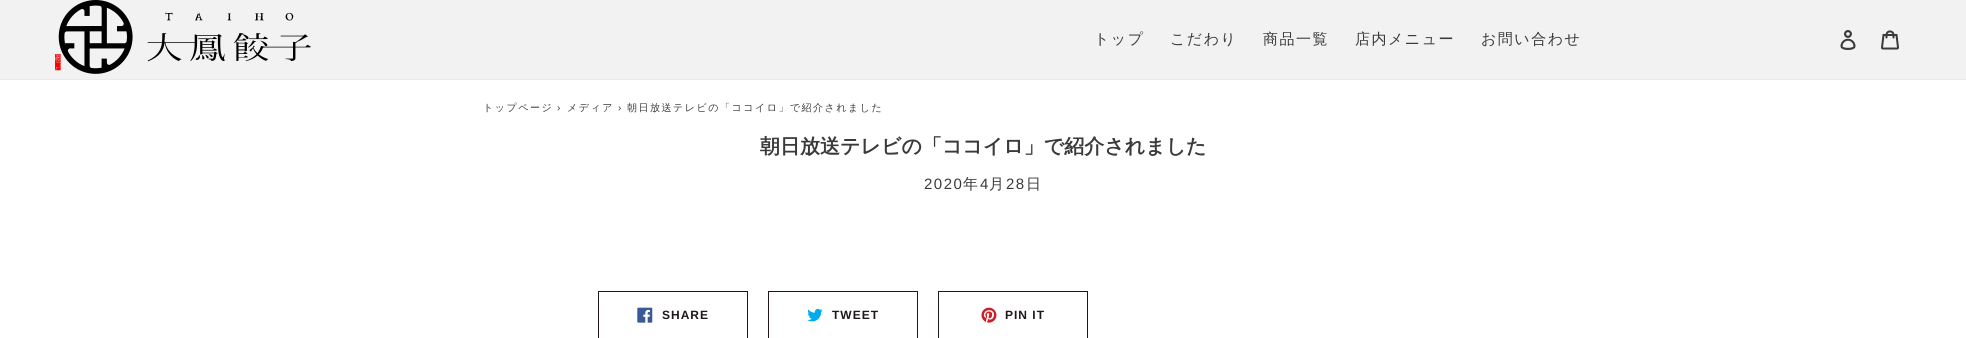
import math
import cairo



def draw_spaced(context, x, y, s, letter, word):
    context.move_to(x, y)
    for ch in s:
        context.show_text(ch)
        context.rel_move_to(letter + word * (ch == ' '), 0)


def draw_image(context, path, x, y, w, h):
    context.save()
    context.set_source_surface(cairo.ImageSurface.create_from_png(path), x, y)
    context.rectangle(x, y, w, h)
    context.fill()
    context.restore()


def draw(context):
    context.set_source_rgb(1, 1, 1)
    context.paint()
    context.set_source_rgb(242 / 255, 242 / 255, 242 / 255)
    context.rectangle(0, 0, 1966, 79)
    context.fill()
    context.set_source_rgb(235 / 255, 235 / 255, 235 / 255)
    context.rectangle(0, 79, 1966, 1)
    context.fill()
    draw_image(context, "images/1.png", 55, 0, 256, 74)
    draw_image(context, "images/2.png", 1840, 30, 16, 20)
    draw_image(context, "images/3.png", 1881, 30, 18, 20)
    context.rectangle(598.5, 291.5, 149, 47)
    context.set_source_rgb(32 / 255, 24 / 255, 24 / 255)
    context.set_line_width(1)
    context.stroke()
    draw_image(context, "images/4.png", 637, 307, 16, 16)
    context.rectangle(768.5, 291.5, 149, 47)
    context.stroke()
    draw_image(context, "images/5.png", 807, 308, 16, 14)
    context.rectangle(938.5, 291.5, 149, 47)
    context.stroke()
    draw_image(context, "images/6.png", 981, 307, 16, 16)
    context.select_font_face("WenQuanYi Zen Hei Medium")
    context.set_font_size(15)
    context.set_source_rgb(58 / 255, 58 / 255, 58 / 255)
    draw_spaced(context, 1094, 44, "トップ", 1.5, 0)
    draw_spaced(context, 1170, 44, "こだわり", 1.5, 0)
    draw_spaced(context, 1263, 44, "商品一覧", 1.5, 0)
    draw_spaced(context, 1355, 44, "店内メニュー", 1.5, 0)
    draw_spaced(context, 1481, 44, "お問い合わせ", 1.5, 0)
    context.set_font_size(10)
    draw_spaced(context, 483, 111, "トップページ", 1.5, 0)
    context.select_font_face("Liberation Sans")
    draw_spaced(context, 557, 111, "›", 1.5, 0)
    context.select_font_face("WenQuanYi Zen Hei Medium")
    draw_spaced(context, 567, 111, "メディア", 1.5, 0)
    context.select_font_face("Liberation Sans")
    draw_spaced(context, 618, 111, "›", 1.5, 0)
    context.select_font_face("WenQuanYi Zen Hei Medium")
    draw_spaced(context, 627, 111, "朝日放送テレビの「ココイロ」で紹介されました", 1.5, 0)
    context.select_font_face("WenQuanYi Zen Hei", cairo.FontSlant.NORMAL, cairo.FontWeight.BOLD)
    context.set_font_size(20)
    context.move_to(760, 153)
    context.show_text("朝日放送テレビの「ココイロ」で紹介されました")
    context.select_font_face("Liberation Sans")
    context.set_font_size(15)
    draw_spaced(context, 924, 189, "2020", 1.5, 0)
    context.select_font_face("WenQuanYi Zen Hei Medium")
    draw_spaced(context, 963, 189, "年", 1.5, 0)
    context.select_font_face("Liberation Sans")
    draw_spaced(context, 980, 189, "4", 1.5, 0)
    context.select_font_face("WenQuanYi Zen Hei Medium")
    draw_spaced(context, 989, 189, "月", 1.5, 0)
    context.select_font_face("Liberation Sans")
    draw_spaced(context, 1006, 189, "28", 1.5, 0)
    context.select_font_face("WenQuanYi Zen Hei Medium")
    draw_spaced(context, 1026, 189, "日", 1.5, 0)
    context.select_font_face("Liberation Sans", cairo.FontSlant.NORMAL, cairo.FontWeight.BOLD)
    context.set_font_size(12)
    context.set_source_rgb(32 / 255, 24 / 255, 24 / 255)
    draw_spaced(context, 662, 319, "SHARE", 1, 0)
    draw_spaced(context, 832, 319, "TWEET", 1, 0)
    draw_spaced(context, 1005, 319, "PIN IT", 1, 0)


surface = cairo.ImageSurface(cairo.Format.RGB24, 1966, 338)
context = cairo.Context(surface)
options = cairo.FontOptions()
options.set_hint_metrics(cairo.HintMetrics.OFF)
options.set_hint_style(cairo.HintStyle.NONE)
context.set_font_options(options)
context.set_miter_limit(4)
draw(context)
surface.write_to_png("out.png")
